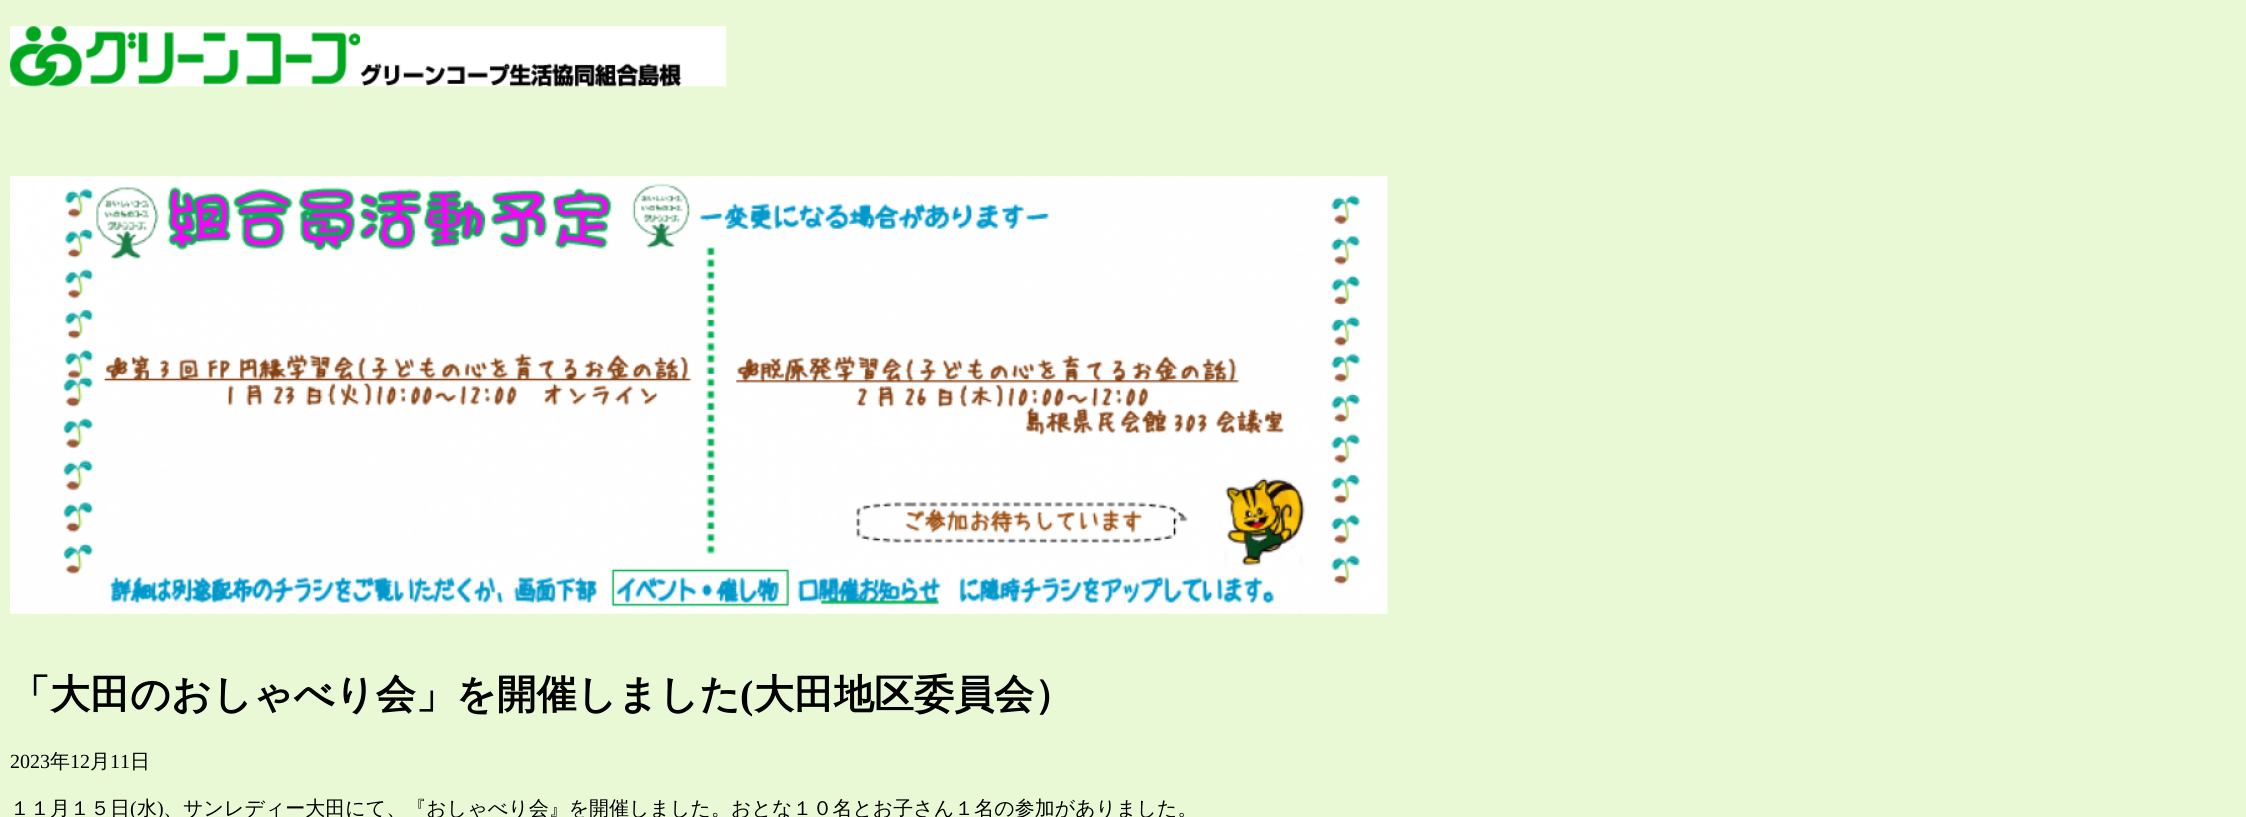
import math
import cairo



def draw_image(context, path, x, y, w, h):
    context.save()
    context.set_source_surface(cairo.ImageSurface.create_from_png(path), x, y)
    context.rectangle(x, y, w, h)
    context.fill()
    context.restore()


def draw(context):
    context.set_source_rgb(233 / 255, 249 / 255, 214 / 255)
    context.paint()
    draw_image(context, "images/1.png", 10, 26, 717, 61)
    draw_image(context, "images/2.png", 10, 176, 1378, 438)
    context.select_font_face("WenQuanYi Zen Hei", cairo.FontSlant.NORMAL, cairo.FontWeight.BOLD)
    context.set_font_size(40)
    context.set_source_rgb(0, 0, 0)
    context.move_to(10, 708)
    context.show_text("「大田のおしゃべり会」を開催しました")
    context.select_font_face("Liberation Serif", cairo.FontSlant.NORMAL, cairo.FontWeight.BOLD)
    context.move_to(740, 708)
    context.show_text("(")
    context.select_font_face("WenQuanYi Zen Hei", cairo.FontSlant.NORMAL, cairo.FontWeight.BOLD)
    context.move_to(754, 708)
    context.show_text("大田地区委員会）")
    context.select_font_face("Liberation Serif")
    context.set_font_size(20)
    context.move_to(10, 768)
    context.show_text("2023")
    context.select_font_face("WenQuanYi Zen Hei Medium")
    context.move_to(50, 768)
    context.show_text("年")
    context.select_font_face("Liberation Serif")
    context.move_to(70, 768)
    context.show_text("12")
    context.select_font_face("WenQuanYi Zen Hei Medium")
    context.move_to(90, 768)
    context.show_text("月")
    context.select_font_face("Liberation Serif")
    context.move_to(110, 768)
    context.show_text("11")
    context.select_font_face("WenQuanYi Zen Hei Medium")
    context.move_to(130, 768)
    context.show_text("日")
    context.move_to(10, 815)
    context.show_text("１１月１５日")
    context.select_font_face("Liberation Serif")
    context.move_to(130, 815)
    context.show_text("(")
    context.select_font_face("WenQuanYi Zen Hei Medium")
    context.move_to(137, 815)
    context.show_text("水")
    context.select_font_face("Liberation Serif")
    context.move_to(157, 815)
    context.show_text(")")
    context.select_font_face("WenQuanYi Zen Hei Medium")
    context.move_to(163, 815)
    context.show_text("、サンレディー大田にて、『おしゃべり会』を開催しました。おとな１０名とお子さん１名の参加がありました。")


surface = cairo.ImageSurface(cairo.Format.RGB24, 2246, 817)
context = cairo.Context(surface)
options = cairo.FontOptions()
options.set_hint_metrics(cairo.HintMetrics.OFF)
options.set_hint_style(cairo.HintStyle.NONE)
context.set_font_options(options)
context.set_miter_limit(4)
draw(context)
surface.write_to_png("out.png")
